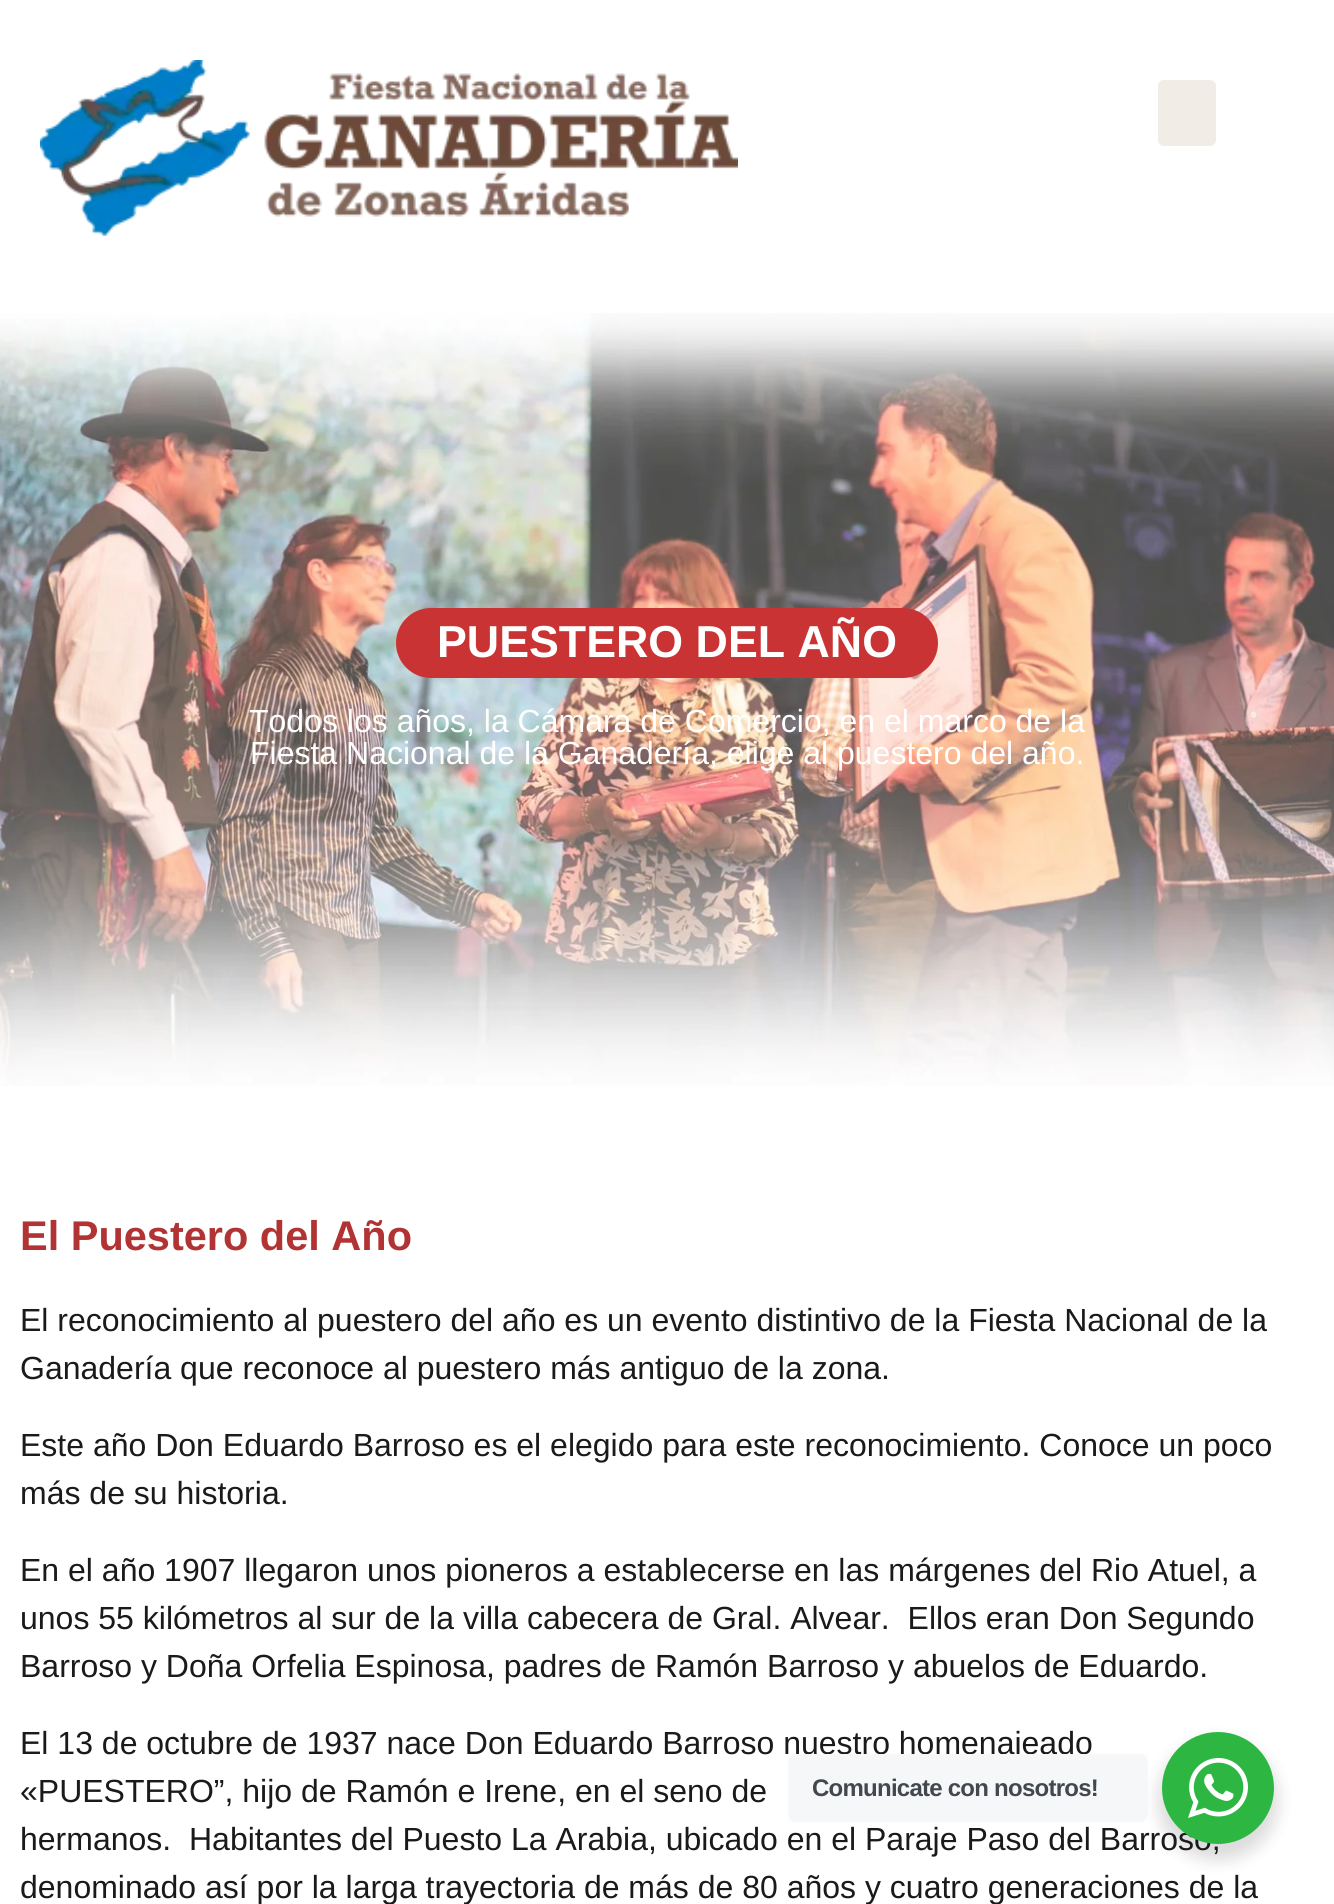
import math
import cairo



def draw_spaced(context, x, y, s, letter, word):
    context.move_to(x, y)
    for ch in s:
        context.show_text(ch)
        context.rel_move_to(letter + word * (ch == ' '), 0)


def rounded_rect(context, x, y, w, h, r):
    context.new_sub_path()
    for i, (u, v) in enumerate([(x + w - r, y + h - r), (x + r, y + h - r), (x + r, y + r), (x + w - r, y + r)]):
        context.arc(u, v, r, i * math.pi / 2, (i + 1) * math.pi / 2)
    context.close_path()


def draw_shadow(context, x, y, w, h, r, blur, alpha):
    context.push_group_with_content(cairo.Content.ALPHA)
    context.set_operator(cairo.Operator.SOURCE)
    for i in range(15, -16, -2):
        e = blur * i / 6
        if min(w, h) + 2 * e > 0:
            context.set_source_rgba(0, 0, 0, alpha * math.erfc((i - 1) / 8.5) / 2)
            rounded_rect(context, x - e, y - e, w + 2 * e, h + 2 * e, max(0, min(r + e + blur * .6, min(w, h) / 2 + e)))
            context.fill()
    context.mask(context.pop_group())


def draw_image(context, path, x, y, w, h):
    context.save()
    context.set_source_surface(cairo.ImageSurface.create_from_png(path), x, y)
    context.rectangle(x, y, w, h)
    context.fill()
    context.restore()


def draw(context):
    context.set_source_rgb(1, 1, 1)
    context.paint()
    draw_image(context, "images/1.png", 40, 60, 698, 176)
    context.set_source_rgb(242 / 255, 236 / 255, 230 / 255)
    rounded_rect(context, 1158, 80, 58, 66, 6)
    context.fill()
    draw_image(context, "images/2.png", 0, 313, 1334, 773)
    context.set_source_rgb(202 / 255, 51 / 255, 51 / 255)
    rounded_rect(context, 396, 608, 542, 70, 35)
    context.fill()
    context.set_source_rgb(0, 0, 0)
    draw_shadow(context, 1158, 1740, 120, 120, 60, 8, 0.14)
    context.select_font_face("Liberation Sans", cairo.FontSlant.NORMAL, cairo.FontWeight.BOLD)
    context.set_font_size(44.75)
    context.set_source_rgb(1, 1, 1)
    context.move_to(437, 657)
    context.show_text("PUESTERO DEL AÑO")
    context.select_font_face("Liberation Sans")
    context.set_font_size(32)
    context.move_to(249, 732)
    context.show_text("Todos los años, la Cámara de Comercio, en el marco de la")
    context.move_to(250, 764)
    context.show_text("Fiesta Nacional de la Ganadería, elige al puestero del año.")
    context.select_font_face("Liberation Sans", cairo.FontSlant.NORMAL, cairo.FontWeight.BOLD)
    context.set_font_size(41.5)
    context.set_source_rgb(177 / 255, 51 / 255, 51 / 255)
    context.move_to(20, 1250)
    context.show_text("El Puestero del Año")
    context.select_font_face("Liberation Sans")
    context.set_font_size(32)
    context.set_source_rgb(26 / 255, 26 / 255, 26 / 255)
    context.move_to(20, 1331)
    context.show_text("El reconocimiento al puestero del año es un evento distintivo de la Fiesta Nacional de la")
    context.move_to(20, 1379)
    context.show_text("Ganadería que reconoce al puestero más antiguo de la zona.")
    context.move_to(20, 1456)
    context.show_text("Este año Don Eduardo Barroso es el elegido para este reconocimiento. Conoce un poco")
    context.move_to(20, 1504)
    context.show_text("más de su historia.")
    context.move_to(20, 1581)
    context.show_text("En el año 1907 llegaron unos pioneros a establecerse en las márgenes del Rio Atuel, a")
    context.move_to(20, 1629)
    context.show_text("unos 55 kilómetros al sur de la villa cabecera de Gral. Alvear.  Ellos eran Don Segundo")
    context.move_to(20, 1677)
    context.show_text("Barroso y Doña Orfelia Espinosa, padres de Ramón Barroso y abuelos de Eduardo.")
    context.move_to(20, 1754)
    context.show_text("El 13 de octubre de 1937 nace Don Eduardo Barroso nuestro homenajeado")
    context.move_to(20, 1802)
    context.show_text("«PUESTERO”, hijo de Ramón e Irene, en el seno de")
    context.move_to(20, 1850)
    context.show_text("hermanos.  Habitantes del Puesto La Arabia, ubicado en el Paraje Paso del Barroso,")
    context.move_to(20, 1898)
    context.show_text("denominado así por la larga trayectoria de más de 80 años y cuatro generaciones de la")
    context.set_source_rgb(245 / 255, 247 / 255, 249 / 255)
    rounded_rect(context, 788, 1754, 360, 68, 8)
    context.fill()
    context.select_font_face("Liberation Sans", cairo.FontSlant.NORMAL, cairo.FontWeight.BOLD)
    context.set_font_size(24)
    context.set_source_rgb(67 / 255, 71 / 255, 78 / 255)
    draw_spaced(context, 812, 1796, "Comunicate con nosotros!", -0.75, 0)
    context.set_source_rgb(45 / 255, 183 / 255, 66 / 255)
    context.new_path()
    context.arc(1218, 1788, 56, 0, 2 * math.pi)
    context.fill()
    draw_image(context, "images/3.png", 1188, 1758, 60, 60)


surface = cairo.ImageSurface(cairo.Format.RGB24, 1334, 1904)
context = cairo.Context(surface)
options = cairo.FontOptions()
options.set_hint_metrics(cairo.HintMetrics.OFF)
options.set_hint_style(cairo.HintStyle.NONE)
context.set_font_options(options)
context.set_miter_limit(4)
draw(context)
surface.write_to_png("out.png")
